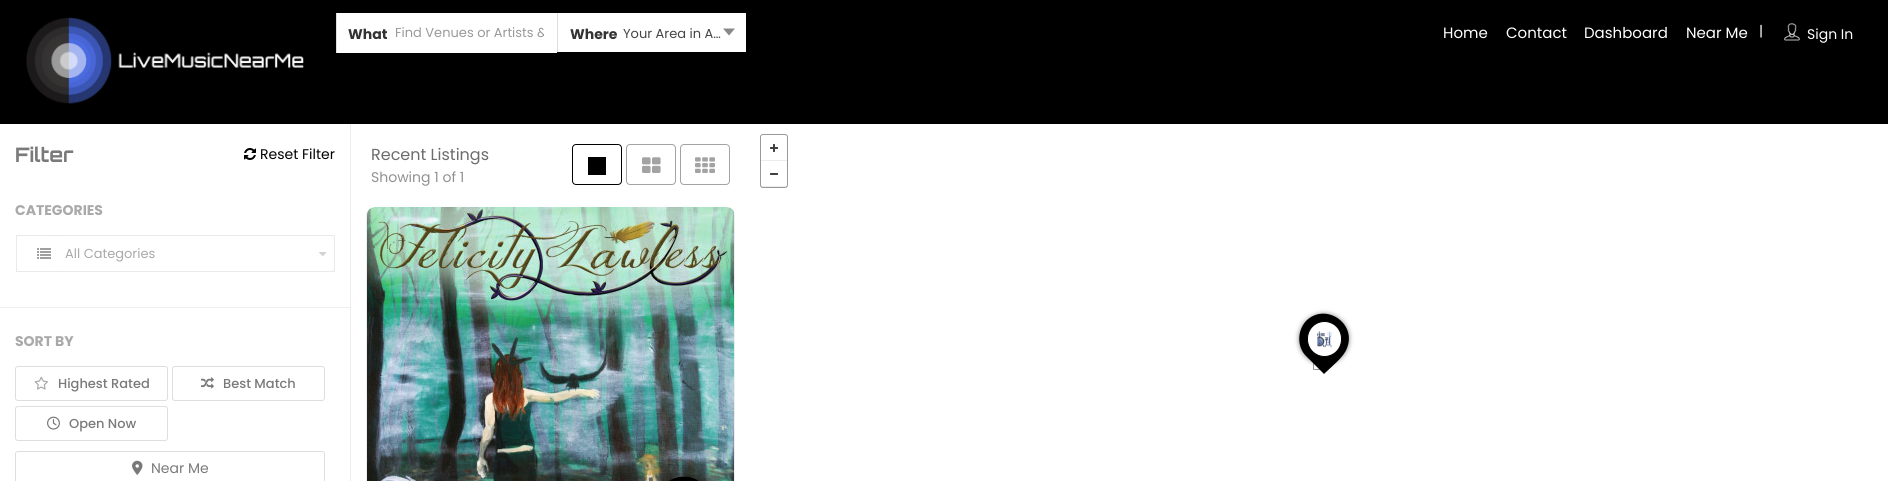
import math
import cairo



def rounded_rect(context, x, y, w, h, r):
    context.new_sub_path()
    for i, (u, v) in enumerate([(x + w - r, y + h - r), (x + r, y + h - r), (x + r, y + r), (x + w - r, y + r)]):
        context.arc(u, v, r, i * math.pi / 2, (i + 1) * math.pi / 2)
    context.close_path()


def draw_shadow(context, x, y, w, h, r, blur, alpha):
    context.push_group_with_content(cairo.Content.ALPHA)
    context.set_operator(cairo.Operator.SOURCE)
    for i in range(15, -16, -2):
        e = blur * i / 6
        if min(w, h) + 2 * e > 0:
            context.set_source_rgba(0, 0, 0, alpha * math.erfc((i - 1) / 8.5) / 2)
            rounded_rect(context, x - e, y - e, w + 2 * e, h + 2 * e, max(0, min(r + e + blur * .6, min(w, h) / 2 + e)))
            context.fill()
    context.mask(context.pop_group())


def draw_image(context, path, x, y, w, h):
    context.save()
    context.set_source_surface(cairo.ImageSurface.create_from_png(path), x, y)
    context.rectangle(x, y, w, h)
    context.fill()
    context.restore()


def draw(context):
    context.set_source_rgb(1, 1, 1)
    context.paint()
    context.set_source_rgb(0, 0, 0)
    context.rectangle(0, 0, 1888, 124)
    context.fill()
    draw_image(context, "images/1.png", 26, 17, 278, 87)
    context.set_source_rgb(1, 1, 1)
    context.rectangle(337, 13, 220, 40)
    context.fill()
    context.set_source_rgb(222 / 255, 222 / 255, 222 / 255)
    context.rectangle(336, 13, 1, 40)
    context.fill()
    context.set_source_rgb(1, 1, 1)
    context.rectangle(558, 13, 188, 39)
    context.fill()
    context.set_source_rgb(222 / 255, 222 / 255, 222 / 255)
    context.rectangle(557, 13, 1, 39)
    context.fill()
    context.set_source_rgb(136 / 255, 136 / 255, 136 / 255)
    context.new_path()
    context.move_to(723, 28.5)
    context.line_to(735, 28.5)
    context.line_to(729, 35.5)
    context.close_path()
    context.fill()
    draw_image(context, "images/2.png", 1784, 22, 16, 19)
    draw_image(context, "images/3.png", 244, 148, 12, 12)
    context.set_source_rgb(238 / 255, 238 / 255, 238 / 255)
    context.rectangle(0, 307, 350, 1)
    context.fill()
    context.rectangle(16.5, 235.5, 318, 36)
    context.set_source_rgb(234 / 255, 234 / 255, 234 / 255)
    context.set_line_width(1)
    context.stroke()
    context.set_source_rgb(248 / 255, 248 / 255, 248 / 255)
    rounded_rect(context, 17, 236, 317, 35, 3)
    context.fill()
    context.set_source_rgb(1, 1, 1)
    rounded_rect(context, 17, 236, 40, 35, 3)
    context.fill()
    draw_image(context, "images/4.png", 37, 248, 14, 11)
    context.new_path()
    context.move_to(57, 236)
    context.line_to(329, 236)
    context.curve_to(332, 236, 334, 238, 334, 241)
    context.line_to(334, 266)
    context.curve_to(334, 269, 332, 271, 329, 271)
    context.line_to(57, 271)
    context.close_path()
    context.fill()
    draw_image(context, "images/5.png", 319, 252, 7, 4)
    rounded_rect(context, 15.5, 366.5, 152, 34, 2.5)
    context.set_source_rgb(222 / 255, 222 / 255, 222 / 255)
    context.stroke()
    draw_image(context, "images/6.png", 34, 376, 14, 14)
    rounded_rect(context, 172.5, 366.5, 152, 34, 2.5)
    context.stroke()
    draw_image(context, "images/7.png", 201, 377, 13, 12)
    rounded_rect(context, 15.5, 406.5, 152, 34, 2.5)
    context.stroke()
    draw_image(context, "images/8.png", 47, 416, 13, 14)
    rounded_rect(context, 15.5, 451.5, 309, 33, 2.5)
    context.stroke()
    draw_image(context, "images/9.png", 132, 460, 11, 15)
    context.set_source_rgb(238 / 255, 238 / 255, 238 / 255)
    context.rectangle(350, 124, 1, 357)
    context.fill()
    rounded_rect(context, 572.5, 144.5, 49, 40, 3.5)
    context.set_source_rgb(0, 0, 0)
    context.stroke()
    context.rectangle(588, 157, 18, 18)
    context.fill()
    rounded_rect(context, 626.5, 144.5, 49, 40, 3.5)
    context.set_source_rgb(163 / 255, 163 / 255, 163 / 255)
    context.stroke()
    draw_image(context, "images/10.png", 642, 157, 19, 16)
    rounded_rect(context, 680.5, 144.5, 49, 40, 3.5)
    context.stroke()
    draw_image(context, "images/11.png", 695, 157, 20, 16)
    context.set_source_rgb(238 / 255, 238 / 255, 238 / 255)
    context.new_path()
    context.move_to(735, 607)
    context.line_to(735, 215)
    context.line_to(734, 211)
    context.line_to(734, 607)
    context.close_path()
    context.fill()
    context.new_path()
    context.move_to(366, 215)
    context.line_to(366, 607)
    context.line_to(367, 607)
    context.line_to(367, 211)
    context.close_path()
    context.fill()
    draw_image(context, "images/12.png", 367, 207, 367, 274)
    draw_image(context, "images/13.png", 669, 476, 30, 5)
    rounded_rect(context, 760.5, 134.5, 27, 53, 2.5)
    context.set_source_rgb(153 / 255, 153 / 255, 153 / 255)
    context.stroke()
    draw_image(context, "images/14.png", 770, 144, 8, 8)
    context.set_source_rgb(236 / 255, 236 / 255, 236 / 255)
    context.rectangle(761, 160, 26, 1)
    context.fill()
    draw_image(context, "images/15.png", 770, 173, 8, 2)
    context.set_source_rgba(0, 0, 0, 0.08)
    context.rectangle(761, 186, 26, 1)
    context.fill()
    context.rectangle(1313.5, 358.5, 11, 11)
    context.set_source_rgb(153 / 255, 153 / 255, 153 / 255)
    context.stroke()
    context.set_source_rgb(0, 0, 0)
    draw_shadow(context, 1299, 314, 50, 50, 25, 2.5, 0.47)
    context.set_source_rgb(0, 0, 0)
    context.new_path()
    context.move_to(1306, 321)
    context.curve_to(1325, 302, 1357, 323, 1347, 348)
    context.curve_to(1344, 357, 1331, 367, 1324, 374)
    context.line_to(1306, 356)
    context.curve_to(1297, 347, 1297, 331, 1306, 321)
    context.close_path()
    context.fill()
    context.set_source_rgb(1, 1, 1)
    rounded_rect(context, 1307.5, 321.5, 34, 35, 17)
    context.fill_preserve()
    context.set_source_rgb(0, 0, 0)
    context.stroke()
    draw_image(context, "images/16.png", 1317, 331, 16, 17)
    context.select_font_face("Poppins", cairo.FontSlant.NORMAL, cairo.FontWeight.BOLD)
    context.set_font_size(14)
    context.set_source_rgb(51 / 255, 51 / 255, 51 / 255)
    context.move_to(348, 39)
    context.show_text("What")
    context.save()
    context.rectangle(395, 23, 149, 20)
    context.clip()
    context.select_font_face("Poppins")
    context.set_font_size(13)
    context.set_source_rgb(153 / 255, 153 / 255, 153 / 255)
    context.move_to(395, 37)
    context.show_text("Find Venues or Artists &")
    context.restore()
    context.move_to(570, 39)
    context.show_text("Where")
    context.select_font_face("Poppins")
    context.set_font_size(13)
    context.set_source_rgb(68 / 255, 68 / 255, 68 / 255)
    context.move_to(623, 38)
    context.show_text("Your Area in A…")
    context.set_font_size(15)
    context.set_source_rgb(1, 1, 1)
    context.move_to(1443, 38)
    context.show_text("Home")
    context.move_to(1506, 38)
    context.show_text("Contact")
    context.move_to(1584, 38)
    context.show_text("Dashboard")
    context.move_to(1686, 38)
    context.show_text("Near Me")
    context.set_font_size(14)
    context.move_to(1759, 36)
    context.show_text("|")
    context.move_to(1807, 39)
    context.show_text("Sign In")
    context.select_font_face("Orbitron", cairo.FontSlant.NORMAL, cairo.FontWeight.BOLD)
    context.set_font_size(20)
    context.set_source_rgb(122 / 255, 122 / 255, 122 / 255)
    context.move_to(15, 162)
    context.show_text("Filter")
    context.select_font_face("Poppins")
    context.set_font_size(14)
    context.set_source_rgb(0, 0, 0)
    context.move_to(260, 159)
    context.show_text("Reset Filter")
    context.select_font_face("Poppins", cairo.FontSlant.NORMAL, cairo.FontWeight.BOLD)
    context.set_source_rgb(170 / 255, 169 / 255, 169 / 255)
    context.move_to(15, 215)
    context.show_text("CATEGORIES")
    context.select_font_face("Poppins")
    context.set_font_size(13)
    context.move_to(65, 258)
    context.show_text("All Categories")
    context.select_font_face("Poppins", cairo.FontSlant.NORMAL, cairo.FontWeight.BOLD)
    context.set_font_size(14)
    context.move_to(15, 346)
    context.show_text("SORT BY")
    context.select_font_face("Poppins Medium")
    context.set_font_size(13)
    context.set_source_rgb(122 / 255, 122 / 255, 122 / 255)
    context.move_to(58, 388)
    context.show_text("Highest Rated")
    context.move_to(223, 388)
    context.show_text("Best Match")
    context.move_to(69, 428)
    context.show_text("Open Now")
    context.select_font_face("Poppins")
    context.set_font_size(14)
    context.move_to(151, 473)
    context.show_text("Near Me")
    context.set_font_size(16)
    context.set_source_rgb(108 / 255, 108 / 255, 108 / 255)
    context.move_to(371, 160)
    context.show_text("Recent Listings")
    context.set_font_size(14)
    context.set_source_rgb(145 / 255, 145 / 255, 145 / 255)
    context.move_to(371, 182)
    context.show_text("Showing 1 of 1")


surface = cairo.ImageSurface(cairo.Format.RGB24, 1888, 481)
context = cairo.Context(surface)
options = cairo.FontOptions()
options.set_hint_metrics(cairo.HintMetrics.OFF)
options.set_hint_style(cairo.HintStyle.NONE)
context.set_font_options(options)
context.set_miter_limit(4)
draw(context)
surface.write_to_png("out.png")
